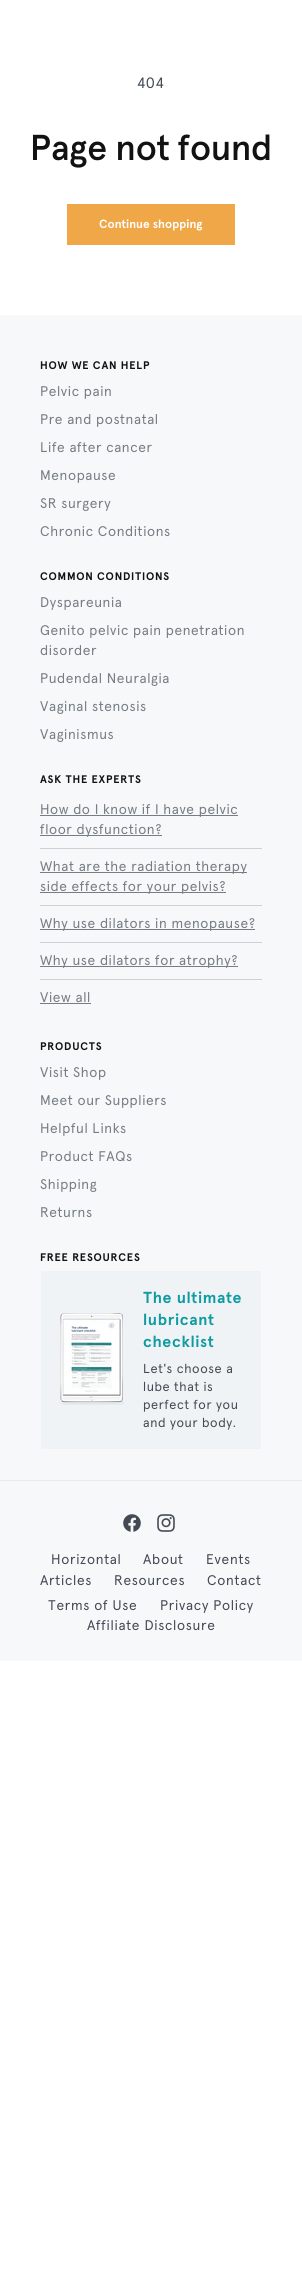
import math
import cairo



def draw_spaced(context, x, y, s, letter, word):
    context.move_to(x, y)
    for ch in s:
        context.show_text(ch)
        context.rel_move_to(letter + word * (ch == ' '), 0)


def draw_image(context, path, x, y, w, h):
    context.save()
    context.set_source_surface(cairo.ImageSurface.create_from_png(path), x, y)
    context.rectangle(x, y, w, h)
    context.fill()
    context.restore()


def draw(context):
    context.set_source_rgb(1, 1, 1)
    context.paint()
    context.set_source_rgb(239 / 255, 167 / 255, 71 / 255)
    context.rectangle(67, 204, 168, 41)
    context.fill()
    context.set_source_rgb(247 / 255, 248 / 255, 249 / 255)
    context.rectangle(0, 315, 302, 1346)
    context.fill()
    context.set_source_rgb(205 / 255, 209 / 255, 212 / 255)
    context.rectangle(40, 848, 222, 1)
    context.fill()
    context.set_source_rgb(118 / 255, 125 / 255, 131 / 255)
    context.rectangle(40, 815, 198, 1)
    context.fill()
    context.rectangle(40, 835, 122, 1)
    context.fill()
    context.set_source_rgb(205 / 255, 209 / 255, 212 / 255)
    context.rectangle(40, 905, 222, 1)
    context.fill()
    context.set_source_rgb(118 / 255, 125 / 255, 131 / 255)
    context.rectangle(40, 872, 207, 1)
    context.fill()
    context.rectangle(40, 892, 186, 1)
    context.fill()
    context.set_source_rgb(205 / 255, 209 / 255, 212 / 255)
    context.rectangle(40, 942, 222, 1)
    context.fill()
    context.set_source_rgb(118 / 255, 125 / 255, 131 / 255)
    context.rectangle(40, 929, 215, 1)
    context.fill()
    context.set_source_rgb(205 / 255, 209 / 255, 212 / 255)
    context.rectangle(40, 979, 222, 1)
    context.fill()
    context.set_source_rgb(118 / 255, 125 / 255, 131 / 255)
    context.rectangle(40, 966, 198, 1)
    context.fill()
    context.rectangle(40, 1003, 51, 1)
    context.fill()
    context.set_source_rgb(240 / 255, 243 / 255, 246 / 255)
    context.rectangle(41, 1271, 220, 178)
    context.fill()
    draw_image(context, "images/1.png", 60, 1313, 64, 92)
    context.set_source_rgb(233 / 255, 234 / 255, 236 / 255)
    context.rectangle(0, 1480, 302, 1)
    context.fill()
    draw_image(context, "images/2.png", 123, 1514, 18, 18)
    draw_image(context, "images/3.png", 157, 1514, 18, 18)
    context.select_font_face("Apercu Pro")
    context.set_font_size(15)
    context.set_source_rgb(67 / 255, 74 / 255, 84 / 255)
    draw_spaced(context, 137, 88, "404", 0.6, 0)
    context.select_font_face("Apercu Pro Medium")
    context.set_font_size(36)
    context.set_source_rgb(18 / 255, 18 / 255, 18 / 255)
    draw_spaced(context, 30, 160, "Page not found", -0.25, 0)
    context.select_font_face("Apercu Pro", cairo.FontSlant.NORMAL, cairo.FontWeight.BOLD)
    context.set_font_size(12)
    context.set_source_rgb(1, 1, 1)
    context.move_to(99, 228)
    context.show_text("Continue shopping")
    context.set_font_size(11)
    context.set_source_rgb(18 / 255, 18 / 255, 18 / 255)
    draw_spaced(context, 40, 369, "HOW WE CAN HELP", 0.75, 0)
    context.select_font_face("Apercu Pro")
    context.set_font_size(14)
    context.set_source_rgb(118 / 255, 125 / 255, 131 / 255)
    draw_spaced(context, 40, 396, "Pelvic pain", 0.6, 0)
    draw_spaced(context, 40, 424, "Pre and postnatal", 0.6, 0)
    draw_spaced(context, 40, 452, "Life after cancer", 0.6, 0)
    draw_spaced(context, 40, 480, "Menopause", 0.6, 0)
    draw_spaced(context, 40, 508, "SR surgery", 0.6, 0)
    draw_spaced(context, 40, 536, "Chronic Conditions", 0.6, 0)
    context.select_font_face("Apercu Pro", cairo.FontSlant.NORMAL, cairo.FontWeight.BOLD)
    context.set_font_size(11)
    context.set_source_rgb(18 / 255, 18 / 255, 18 / 255)
    draw_spaced(context, 40, 580, "COMMON CONDITIONS", 0.75, 0)
    context.select_font_face("Apercu Pro")
    context.set_font_size(14)
    context.set_source_rgb(118 / 255, 125 / 255, 131 / 255)
    draw_spaced(context, 40, 607, "Dyspareunia", 0.6, 0)
    draw_spaced(context, 40, 635, "Genito pelvic pain penetration", 0.6, 0)
    draw_spaced(context, 40, 655, "disorder", 0.6, 0)
    draw_spaced(context, 40, 683, "Pudendal Neuralgia", 0.6, 0)
    draw_spaced(context, 40, 711, "Vaginal stenosis", 0.6, 0)
    draw_spaced(context, 40, 739, "Vaginismus", 0.6, 0)
    context.select_font_face("Apercu Pro", cairo.FontSlant.NORMAL, cairo.FontWeight.BOLD)
    context.set_font_size(11)
    context.set_source_rgb(18 / 255, 18 / 255, 18 / 255)
    draw_spaced(context, 40, 783, "ASK THE EXPERTS", 0.75, 0)
    context.select_font_face("Apercu Pro")
    context.set_font_size(14)
    context.set_source_rgb(118 / 255, 125 / 255, 131 / 255)
    draw_spaced(context, 40, 814, "How do I know if I have pelvic", 0.6, 0)
    draw_spaced(context, 40, 834, "floor dysfunction?", 0.6, 0)
    draw_spaced(context, 40, 871, "What are the radiation therapy", 0.6, 0)
    draw_spaced(context, 40, 891, "side effects for your pelvis?", 0.6, 0)
    draw_spaced(context, 40, 928, "Why use dilators in menopause?", 0.6, 0)
    draw_spaced(context, 40, 965, "Why use dilators for atrophy?", 0.6, 0)
    draw_spaced(context, 40, 1002, "View all", 0.6, 0)
    context.select_font_face("Apercu Pro", cairo.FontSlant.NORMAL, cairo.FontWeight.BOLD)
    context.set_font_size(11)
    context.set_source_rgb(18 / 255, 18 / 255, 18 / 255)
    draw_spaced(context, 40, 1050, "PRODUCTS", 0.75, 0)
    context.select_font_face("Apercu Pro")
    context.set_font_size(14)
    context.set_source_rgb(118 / 255, 125 / 255, 131 / 255)
    draw_spaced(context, 40, 1077, "Visit Shop", 0.6, 0)
    draw_spaced(context, 40, 1105, "Meet our Suppliers", 0.6, 0)
    draw_spaced(context, 40, 1133, "Helpful Links", 0.6, 0)
    draw_spaced(context, 40, 1161, "Product FAQs", 0.6, 0)
    draw_spaced(context, 40, 1189, "Shipping", 0.6, 0)
    draw_spaced(context, 40, 1217, "Returns", 0.6, 0)
    context.select_font_face("Apercu Pro", cairo.FontSlant.NORMAL, cairo.FontWeight.BOLD)
    context.set_font_size(11)
    context.set_source_rgb(18 / 255, 18 / 255, 18 / 255)
    draw_spaced(context, 40, 1261, "FREE RESOURCES", 0.75, 0)
    context.set_font_size(16)
    context.set_source_rgb(15 / 255, 155 / 255, 161 / 255)
    draw_spaced(context, 143, 1303, "The ultimate", 0.6, 0)
    draw_spaced(context, 143, 1325, "lubricant", 0.6, 0)
    draw_spaced(context, 143, 1347, "checklist", 0.6, 0)
    context.select_font_face("Apercu Pro")
    context.set_font_size(13)
    context.set_source_rgb(67 / 255, 74 / 255, 84 / 255)
    draw_spaced(context, 143, 1373, "Let's choose a", 0.6, 0)
    draw_spaced(context, 143, 1391, "lube that is", 0.6, 0)
    draw_spaced(context, 143, 1409, "perfect for you", 0.6, 0)
    draw_spaced(context, 143, 1427, "and your body.", 0.6, 0)
    context.set_font_size(14)
    draw_spaced(context, 51, 1564, "Horizontal", 0.7, 0)
    draw_spaced(context, 143, 1564, "About", 0.7, 0)
    draw_spaced(context, 206, 1564, "Events", 0.7, 0)
    draw_spaced(context, 40, 1585, "Articles", 0.7, 0)
    draw_spaced(context, 114, 1585, "Resources", 0.7, 0)
    draw_spaced(context, 207, 1585, "Contact", 0.7, 0)
    draw_spaced(context, 48, 1610, "Terms of Use", 0.7, 0)
    draw_spaced(context, 160, 1610, "Privacy Policy", 0.7, 0)
    draw_spaced(context, 87, 1630, "Affiliate Disclosure", 0.7, 0)


surface = cairo.ImageSurface(cairo.Format.RGB24, 302, 2277)
context = cairo.Context(surface)
options = cairo.FontOptions()
options.set_hint_metrics(cairo.HintMetrics.OFF)
options.set_hint_style(cairo.HintStyle.NONE)
context.set_font_options(options)
context.set_miter_limit(4)
draw(context)
surface.write_to_png("out.png")
